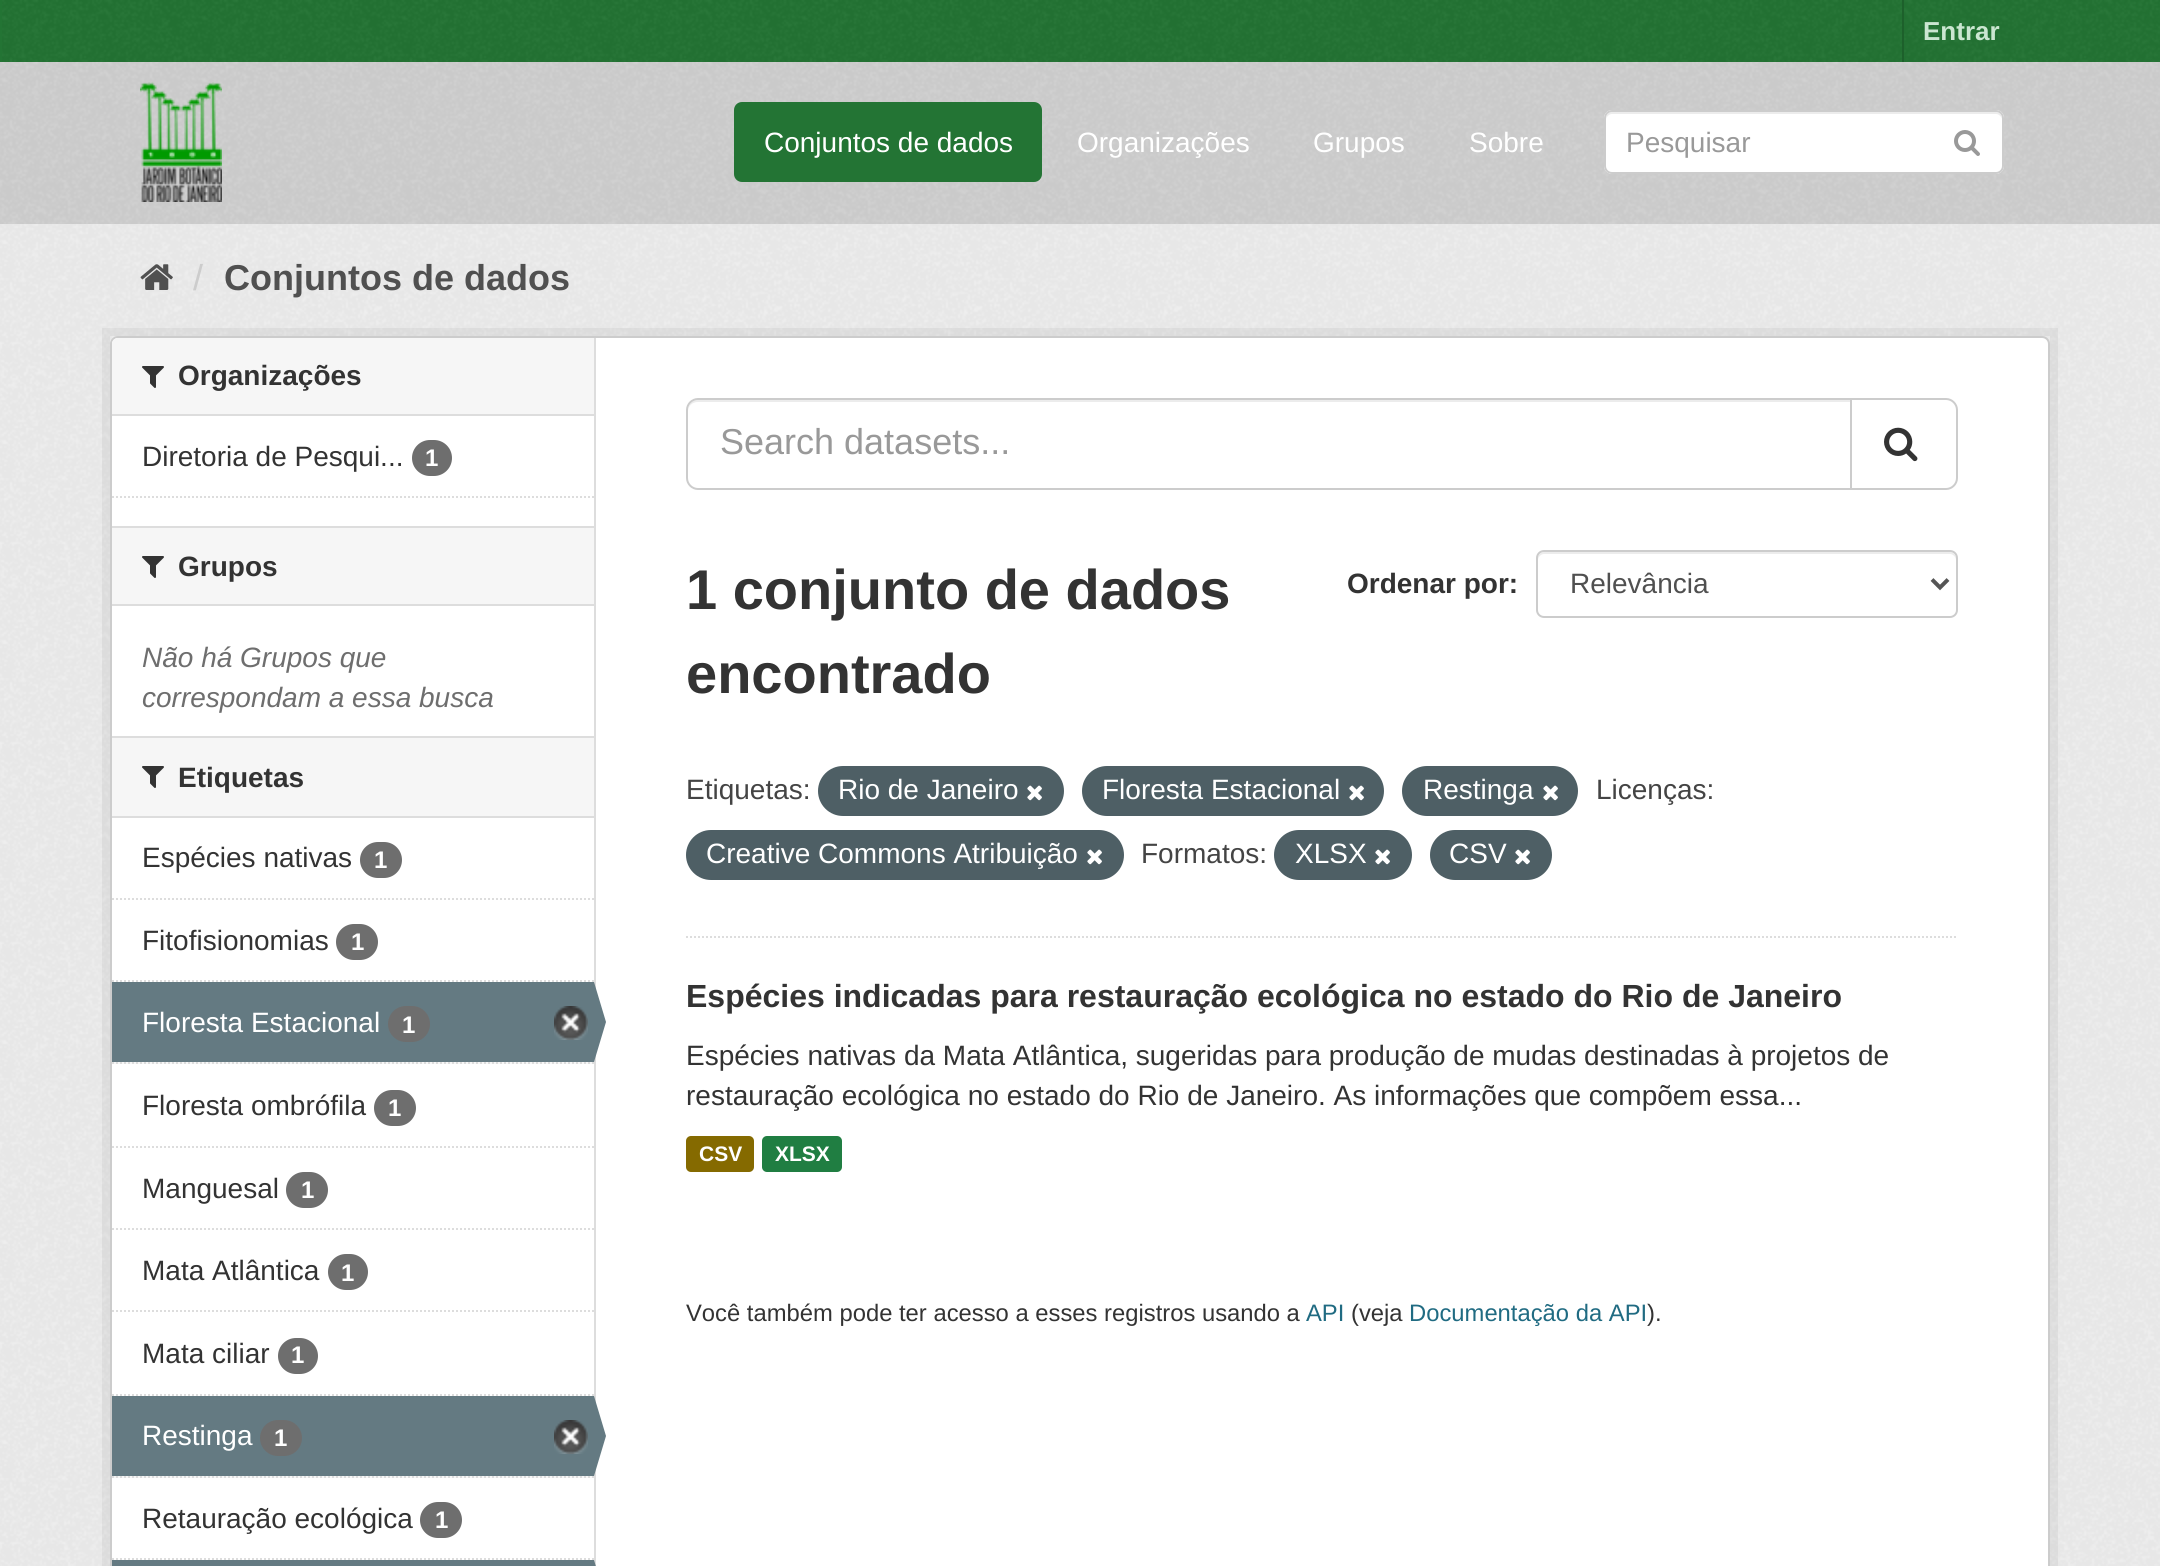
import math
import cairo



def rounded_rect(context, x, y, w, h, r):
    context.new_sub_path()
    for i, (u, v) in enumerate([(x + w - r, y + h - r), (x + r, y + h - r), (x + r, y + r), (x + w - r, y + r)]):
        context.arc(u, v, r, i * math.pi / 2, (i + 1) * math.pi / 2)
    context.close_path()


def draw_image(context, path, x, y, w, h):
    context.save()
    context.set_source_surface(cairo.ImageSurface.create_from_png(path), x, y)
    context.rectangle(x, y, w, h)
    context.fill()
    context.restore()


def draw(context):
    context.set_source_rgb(35 / 255, 116 / 255, 52 / 255)
    context.paint()
    draw_image(context, "images/1.png", 2, 0, 2158, 62)
    context.set_source_rgb(29 / 255, 96 / 255, 43 / 255)
    context.rectangle(1902, 0, 2, 62)
    context.fill()
    context.set_source_rgb(209 / 255, 209 / 255, 209 / 255)
    context.rectangle(0, 62, 2160, 162)
    context.fill()
    draw_image(context, "images/2.png", 0, 62, 2160, 162)
    draw_image(context, "images/3.png", 140, 82, 82, 120)
    context.set_source_rgb(35 / 255, 116 / 255, 52 / 255)
    rounded_rect(context, 734, 102, 308, 80, 8)
    context.fill()
    context.set_source_rgb(1, 1, 1)
    rounded_rect(context, 1604, 110, 400, 64, 8)
    context.fill()
    context.set_source_rgb(236 / 255, 236 / 255, 236 / 255)
    context.new_path()
    context.move_to(1612, 114)
    context.line_to(1996, 114)
    context.curve_to(1999, 114, 2002, 117, 2002, 120)
    context.curve_to(2002, 116, 2001, 112, 1996, 112)
    context.line_to(1612, 112)
    context.curve_to(1607, 112, 1606, 116, 1606, 120)
    context.curve_to(1606, 117, 1609, 114, 1612, 114)
    context.close_path()
    context.fill()
    rounded_rect(context, 1605, 111, 398, 62, 7)
    context.set_source_rgb(204 / 255, 204 / 255, 204 / 255)
    context.stroke()
    draw_image(context, "images/4.png", 1954, 130, 26, 26)
    context.set_source_rgb(238 / 255, 238 / 255, 238 / 255)
    context.rectangle(0, 224, 2160, 1342)
    context.fill()
    draw_image(context, "images/5.png", 0, 224, 2160, 1342)
    draw_image(context, "images/6.png", 140, 264, 33, 26)
    context.rectangle(106, 332, 1948, 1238)
    context.set_source_rgba(0, 0, 0, 0.05)
    context.set_line_width(8)
    context.stroke()
    context.set_source_rgb(1, 1, 1)
    rounded_rect(context, 111, 337, 1938, 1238, 7)
    context.fill_preserve()
    context.set_source_rgb(204 / 255, 204 / 255, 204 / 255)
    context.set_line_width(2)
    context.stroke()
    context.set_source_rgb(246 / 255, 246 / 255, 246 / 255)
    context.new_path()
    context.move_to(118, 338)
    context.line_to(594, 338)
    context.line_to(594, 416)
    context.line_to(112, 416)
    context.line_to(112, 344)
    context.curve_to(112, 340.5, 114.5, 338, 118, 338)
    context.close_path()
    context.fill()
    context.set_source_rgb(221 / 255, 221 / 255, 221 / 255)
    context.rectangle(112, 414, 482, 2)
    context.fill()
    draw_image(context, "images/7.png", 142, 366, 22, 22)
    context.set_source_rgb(110 / 255, 110 / 255, 110 / 255)
    rounded_rect(context, 412, 440, 40, 36, 18)
    context.fill()
    context.new_path()
    context.move_to(112, 497)
    context.line_to(594, 497)
    context.set_source_rgb(221 / 255, 221 / 255, 221 / 255)
    context.set_dash([2, 2])
    context.stroke()
    context.set_source_rgb(246 / 255, 246 / 255, 246 / 255)
    context.rectangle(112, 528, 482, 76)
    context.fill()
    context.set_source_rgb(221 / 255, 221 / 255, 221 / 255)
    context.rectangle(112, 526, 482, 2)
    context.fill()
    context.rectangle(112, 604, 482, 2)
    context.fill()
    draw_image(context, "images/7.png", 142, 556, 22, 22)
    context.set_source_rgb(246 / 255, 246 / 255, 246 / 255)
    context.rectangle(112, 738, 482, 78)
    context.fill()
    context.set_source_rgb(221 / 255, 221 / 255, 221 / 255)
    context.rectangle(112, 736, 482, 2)
    context.fill()
    context.rectangle(112, 816, 482, 2)
    context.fill()
    draw_image(context, "images/7.png", 142, 766, 22, 22)
    context.new_path()
    context.move_to(112, 899)
    context.line_to(594, 899)
    context.stroke()
    context.set_source_rgb(110 / 255, 110 / 255, 110 / 255)
    rounded_rect(context, 360, 842, 42, 36, 18)
    context.fill()
    context.new_path()
    context.move_to(112, 981)
    context.line_to(594, 981)
    context.set_source_rgb(221 / 255, 221 / 255, 221 / 255)
    context.stroke()
    context.set_source_rgb(110 / 255, 110 / 255, 110 / 255)
    rounded_rect(context, 336, 924, 42, 36, 18)
    context.fill()
    context.set_source_rgb(246 / 255, 246 / 255, 246 / 255)
    context.rectangle(114, 1062, 478, 2)
    context.fill()
    context.new_path()
    context.move_to(112, 1063)
    context.line_to(594, 1063)
    context.set_source_rgb(221 / 255, 221 / 255, 221 / 255)
    context.stroke()
    context.set_source_rgb(100 / 255, 122 / 255, 130 / 255)
    context.rectangle(112, 982, 482, 80)
    context.fill()
    context.set_source_rgb(110 / 255, 110 / 255, 110 / 255)
    rounded_rect(context, 388, 1006, 42, 36, 18)
    context.fill()
    draw_image(context, "images/8.png", 554, 1006, 34, 34)
    context.set_source_rgb(221 / 255, 221 / 255, 221 / 255)
    context.rectangle(594, 338, 2, 1228)
    context.fill()
    context.set_source_rgb(100 / 255, 122 / 255, 130 / 255)
    context.new_path()
    context.move_to(594, 1062)
    context.line_to(594, 982)
    context.line_to(606, 1022)
    context.close_path()
    context.fill()
    context.new_path()
    context.move_to(112, 1147)
    context.line_to(594, 1147)
    context.set_source_rgb(221 / 255, 221 / 255, 221 / 255)
    context.stroke()
    context.set_source_rgb(110 / 255, 110 / 255, 110 / 255)
    rounded_rect(context, 374, 1090, 42, 36, 18)
    context.fill()
    context.new_path()
    context.move_to(112, 1229)
    context.line_to(594, 1229)
    context.set_source_rgb(221 / 255, 221 / 255, 221 / 255)
    context.stroke()
    context.set_source_rgb(110 / 255, 110 / 255, 110 / 255)
    rounded_rect(context, 286, 1172, 42, 36, 18)
    context.fill()
    context.new_path()
    context.move_to(112, 1311)
    context.line_to(594, 1311)
    context.set_source_rgb(221 / 255, 221 / 255, 221 / 255)
    context.stroke()
    context.set_source_rgb(110 / 255, 110 / 255, 110 / 255)
    rounded_rect(context, 328, 1254, 40, 36, 18)
    context.fill()
    context.new_path()
    context.move_to(112, 1395)
    context.line_to(594, 1395)
    context.set_source_rgb(221 / 255, 221 / 255, 221 / 255)
    context.stroke()
    context.set_source_rgb(110 / 255, 110 / 255, 110 / 255)
    rounded_rect(context, 278, 1338, 40, 36, 18)
    context.fill()
    context.set_source_rgb(246 / 255, 246 / 255, 246 / 255)
    context.rectangle(114, 1476, 478, 2)
    context.fill()
    context.new_path()
    context.move_to(112, 1477)
    context.line_to(594, 1477)
    context.set_source_rgb(221 / 255, 221 / 255, 221 / 255)
    context.stroke()
    context.set_source_rgb(100 / 255, 122 / 255, 130 / 255)
    context.rectangle(112, 1396, 482, 80)
    context.fill()
    context.set_source_rgb(110 / 255, 110 / 255, 110 / 255)
    rounded_rect(context, 260, 1420, 42, 36, 18)
    context.fill()
    draw_image(context, "images/8.png", 554, 1420, 34, 34)
    context.set_source_rgb(100 / 255, 122 / 255, 130 / 255)
    context.new_path()
    context.move_to(594, 1476)
    context.line_to(594, 1396)
    context.line_to(606, 1436)
    context.close_path()
    context.fill()
    context.new_path()
    context.move_to(112, 1559)
    context.line_to(594, 1559)
    context.set_source_rgb(221 / 255, 221 / 255, 221 / 255)
    context.stroke()
    context.set_source_rgb(110 / 255, 110 / 255, 110 / 255)
    rounded_rect(context, 420, 1502, 42, 36, 18)
    context.fill()
    context.set_source_rgb(100 / 255, 122 / 255, 130 / 255)
    context.rectangle(112, 1560, 482, 6)
    context.fill()
    context.new_path()
    context.move_to(594, 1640)
    context.line_to(594, 1560)
    context.line_to(606, 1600)
    context.close_path()
    context.fill()
    context.new_path()
    context.move_to(686, 937)
    context.line_to(1958, 937)
    context.set_source_rgb(221 / 255, 221 / 255, 221 / 255)
    context.stroke()
    context.set_source_rgb(236 / 255, 236 / 255, 236 / 255)
    context.new_path()
    context.move_to(698, 402)
    context.line_to(1850, 402)
    context.line_to(1850, 400)
    context.line_to(698, 400)
    context.curve_to(691, 400, 688, 406, 688, 412)
    context.curve_to(688, 406, 692, 402, 698, 402)
    context.close_path()
    context.fill()
    context.new_path()
    context.move_to(698, 399)
    context.line_to(1851, 399)
    context.line_to(1851, 489)
    context.line_to(698, 489)
    context.curve_to(692, 489, 687, 484, 687, 478)
    context.line_to(687, 410)
    context.curve_to(687, 404, 692, 399, 698, 399)
    context.close_path()
    context.set_source_rgb(204 / 255, 204 / 255, 204 / 255)
    context.set_dash([])
    context.stroke()
    context.set_source_rgb(1, 1, 1)
    context.new_path()
    context.move_to(1851, 399)
    context.line_to(1946, 399)
    context.curve_to(1952, 399, 1957, 404, 1957, 410)
    context.line_to(1957, 478)
    context.curve_to(1957, 484, 1952, 489, 1946, 489)
    context.line_to(1851, 489)
    context.close_path()
    context.fill_preserve()
    context.set_source_rgb(204 / 255, 204 / 255, 204 / 255)
    context.stroke()
    draw_image(context, "images/9.png", 1884, 427, 34, 35)
    context.set_source_rgb(236 / 255, 236 / 255, 236 / 255)
    context.new_path()
    context.move_to(1544, 554)
    context.line_to(1950, 554)
    context.curve_to(1953, 554, 1956, 557, 1956, 560)
    context.line_to(1956, 558)
    context.curve_to(1956, 555, 1953, 552, 1950, 552)
    context.line_to(1544, 552)
    context.curve_to(1541, 552, 1538, 555, 1538, 558)
    context.line_to(1538, 560)
    context.curve_to(1538, 557, 1541, 554, 1544, 554)
    context.close_path()
    context.fill()
    rounded_rect(context, 1537, 551, 420, 66, 7)
    context.set_source_rgb(204 / 255, 204 / 255, 204 / 255)
    context.stroke()
    context.new_path()
    context.move_to(1932, 579.5)
    context.line_to(1940, 587.5)
    context.line_to(1948, 579.5)
    context.set_source_rgb(85 / 255, 85 / 255, 85 / 255)
    context.set_line_width(4)
    context.stroke()
    context.set_source_rgb(78 / 255, 95 / 255, 101 / 255)
    rounded_rect(context, 818, 766, 246, 50, 25)
    context.fill()
    draw_image(context, "images/10.png", 1027, 785, 15, 16)
    rounded_rect(context, 1082, 766, 302, 50, 25)
    context.fill()
    draw_image(context, "images/10.png", 1349, 785, 15, 16)
    rounded_rect(context, 1402, 766, 176, 50, 25)
    context.fill()
    draw_image(context, "images/10.png", 1543, 785, 15, 16)
    rounded_rect(context, 686, 830, 438, 50, 25)
    context.fill()
    draw_image(context, "images/10.png", 1087, 849, 15, 16)
    rounded_rect(context, 1274, 830, 138, 50, 25)
    context.fill()
    draw_image(context, "images/10.png", 1375, 849, 15, 16)
    rounded_rect(context, 1430, 830, 122, 50, 25)
    context.fill()
    draw_image(context, "images/10.png", 1515, 849, 15, 16)
    context.set_source_rgb(133 / 255, 106 / 255, 0)
    rounded_rect(context, 686, 1136, 68, 36, 5)
    context.fill()
    context.set_source_rgb(32 / 255, 126 / 255, 66 / 255)
    rounded_rect(context, 762, 1136, 80, 36, 5)
    context.fill()
    context.select_font_face("Liberation Sans", cairo.FontSlant.NORMAL, cairo.FontWeight.BOLD)
    context.set_font_size(26)
    context.set_source_rgb(203 / 255, 230 / 255, 209 / 255)
    context.move_to(1923, 40)
    context.show_text("Entrar")
    context.select_font_face("Liberation Sans")
    context.set_font_size(28)
    context.set_source_rgb(1, 1, 1)
    context.move_to(764, 152)
    context.show_text("Conjuntos de dados")
    context.move_to(1077, 152)
    context.show_text("Organizações")
    context.move_to(1313, 152)
    context.show_text("Grupos")
    context.move_to(1469, 152)
    context.show_text("Sobre")
    context.set_source_rgb(153 / 255, 153 / 255, 153 / 255)
    context.move_to(1626, 152)
    context.show_text("Pesquisar")
    context.set_font_size(36)
    context.set_source_rgb(204 / 255, 204 / 255, 204 / 255)
    context.move_to(193, 290)
    context.show_text("/")
    context.select_font_face("Liberation Sans", cairo.FontSlant.NORMAL, cairo.FontWeight.BOLD)
    context.set_source_rgb(80 / 255, 80 / 255, 80 / 255)
    context.move_to(224, 290)
    context.show_text("Conjuntos de dados")
    context.set_font_size(28)
    context.set_source_rgb(51 / 255, 51 / 255, 51 / 255)
    context.move_to(178, 385)
    context.show_text("Organizações")
    context.select_font_face("Liberation Sans")
    context.move_to(142, 466)
    context.show_text("Diretoria de Pesqui...")
    context.select_font_face("Liberation Sans", cairo.FontSlant.NORMAL, cairo.FontWeight.BOLD)
    context.set_font_size(24)
    context.set_source_rgb(1, 1, 1)
    context.move_to(425, 466)
    context.show_text("1")
    context.set_font_size(28)
    context.set_source_rgb(51 / 255, 51 / 255, 51 / 255)
    context.move_to(178, 576)
    context.show_text("Grupos")
    context.select_font_face("Liberation Sans", cairo.FontSlant.ITALIC)
    context.set_source_rgb(110 / 255, 110 / 255, 110 / 255)
    context.move_to(142, 667)
    context.show_text("Não há Grupos que")
    context.move_to(142, 707)
    context.show_text("correspondam a essa busca")
    context.select_font_face("Liberation Sans", cairo.FontSlant.NORMAL, cairo.FontWeight.BOLD)
    context.set_source_rgb(51 / 255, 51 / 255, 51 / 255)
    context.move_to(178, 787)
    context.show_text("Etiquetas")
    context.select_font_face("Liberation Sans")
    context.move_to(142, 867)
    context.show_text("Espécies nativas")
    context.select_font_face("Liberation Sans", cairo.FontSlant.NORMAL, cairo.FontWeight.BOLD)
    context.set_font_size(24)
    context.set_source_rgb(1, 1, 1)
    context.move_to(374, 868)
    context.show_text("1")
    context.select_font_face("Liberation Sans")
    context.set_font_size(28)
    context.set_source_rgb(51 / 255, 51 / 255, 51 / 255)
    context.move_to(142, 950)
    context.show_text("Fitofisionomias")
    context.select_font_face("Liberation Sans", cairo.FontSlant.NORMAL, cairo.FontWeight.BOLD)
    context.set_font_size(24)
    context.set_source_rgb(1, 1, 1)
    context.move_to(351, 950)
    context.show_text("1")
    context.select_font_face("Liberation Sans")
    context.set_font_size(28)
    context.move_to(142, 1032)
    context.show_text("Floresta Estacional")
    context.select_font_face("Liberation Sans", cairo.FontSlant.NORMAL, cairo.FontWeight.BOLD)
    context.set_font_size(24)
    context.move_to(402, 1033)
    context.show_text("1")
    context.select_font_face("Liberation Sans")
    context.set_font_size(28)
    context.set_source_rgb(51 / 255, 51 / 255, 51 / 255)
    context.move_to(142, 1115)
    context.show_text("Floresta ombrófila")
    context.select_font_face("Liberation Sans", cairo.FontSlant.NORMAL, cairo.FontWeight.BOLD)
    context.set_font_size(24)
    context.set_source_rgb(1, 1, 1)
    context.move_to(388, 1116)
    context.show_text("1")
    context.select_font_face("Liberation Sans")
    context.set_font_size(28)
    context.set_source_rgb(51 / 255, 51 / 255, 51 / 255)
    context.move_to(142, 1198)
    context.show_text("Manguesal")
    context.select_font_face("Liberation Sans", cairo.FontSlant.NORMAL, cairo.FontWeight.BOLD)
    context.set_font_size(24)
    context.set_source_rgb(1, 1, 1)
    context.move_to(301, 1198)
    context.show_text("1")
    context.select_font_face("Liberation Sans")
    context.set_font_size(28)
    context.set_source_rgb(51 / 255, 51 / 255, 51 / 255)
    context.move_to(142, 1280)
    context.show_text("Mata Atlântica")
    context.select_font_face("Liberation Sans", cairo.FontSlant.NORMAL, cairo.FontWeight.BOLD)
    context.set_font_size(24)
    context.set_source_rgb(1, 1, 1)
    context.move_to(341, 1281)
    context.show_text("1")
    context.select_font_face("Liberation Sans")
    context.set_font_size(28)
    context.set_source_rgb(51 / 255, 51 / 255, 51 / 255)
    context.move_to(142, 1363)
    context.show_text("Mata ciliar")
    context.select_font_face("Liberation Sans", cairo.FontSlant.NORMAL, cairo.FontWeight.BOLD)
    context.set_font_size(24)
    context.set_source_rgb(1, 1, 1)
    context.move_to(291, 1363)
    context.show_text("1")
    context.select_font_face("Liberation Sans")
    context.set_font_size(28)
    context.move_to(142, 1445)
    context.show_text("Restinga")
    context.select_font_face("Liberation Sans", cairo.FontSlant.NORMAL, cairo.FontWeight.BOLD)
    context.set_font_size(24)
    context.move_to(274, 1446)
    context.show_text("1")
    context.select_font_face("Liberation Sans")
    context.set_font_size(28)
    context.set_source_rgb(51 / 255, 51 / 255, 51 / 255)
    context.move_to(142, 1528)
    context.show_text("Retauração ecológica")
    context.select_font_face("Liberation Sans", cairo.FontSlant.NORMAL, cairo.FontWeight.BOLD)
    context.set_font_size(24)
    context.set_source_rgb(1, 1, 1)
    context.move_to(435, 1528)
    context.show_text("1")
    context.select_font_face("Liberation Sans")
    context.set_font_size(36)
    context.set_source_rgb(153 / 255, 153 / 255, 153 / 255)
    context.move_to(720, 454)
    context.show_text("Search datasets...")
    context.select_font_face("Liberation Sans", cairo.FontSlant.NORMAL, cairo.FontWeight.BOLD)
    context.set_font_size(56)
    context.set_source_rgb(51 / 255, 51 / 255, 51 / 255)
    context.move_to(686, 609)
    context.show_text("1 conjunto de dados")
    context.move_to(686, 693)
    context.show_text("encontrado")
    context.set_font_size(28)
    context.move_to(1347, 593)
    context.show_text("Ordenar por:")
    context.select_font_face("Liberation Sans")
    context.set_source_rgb(80 / 255, 80 / 255, 80 / 255)
    context.move_to(1570, 593)
    context.show_text("Relevância")
    context.set_source_rgb(68 / 255, 68 / 255, 68 / 255)
    context.move_to(686, 799)
    context.show_text("Etiquetas:")
    context.set_source_rgb(1, 1, 1)
    context.move_to(838, 799)
    context.show_text("Rio de Janeiro")
    context.move_to(1102, 799)
    context.show_text("Floresta Estacional")
    context.move_to(1423, 799)
    context.show_text("Restinga")
    context.set_source_rgb(68 / 255, 68 / 255, 68 / 255)
    context.move_to(1596, 799)
    context.show_text("Licenças:")
    context.set_source_rgb(1, 1, 1)
    context.move_to(706, 863)
    context.show_text("Creative Commons Atribuição")
    context.set_source_rgb(68 / 255, 68 / 255, 68 / 255)
    context.move_to(1141, 863)
    context.show_text("Formatos:")
    context.set_source_rgb(1, 1, 1)
    context.move_to(1295, 863)
    context.show_text("XLSX")
    context.move_to(1449, 863)
    context.show_text("CSV")
    context.select_font_face("Liberation Sans", cairo.FontSlant.NORMAL, cairo.FontWeight.BOLD)
    context.set_font_size(32)
    context.set_source_rgb(51 / 255, 51 / 255, 51 / 255)
    context.move_to(686, 1007)
    context.show_text("Espécies indicadas para restauração ecológica no estado do Rio de Janeiro")
    context.select_font_face("Liberation Sans")
    context.set_font_size(28)
    context.move_to(686, 1065)
    context.show_text("Espécies nativas da Mata Atlântica, sugeridas para produção de mudas destinadas à projetos de")
    context.move_to(686, 1105)
    context.show_text("restauração ecológica no estado do Rio de Janeiro. As informações que compõem essa...")
    context.select_font_face("Liberation Sans", cairo.FontSlant.NORMAL, cairo.FontWeight.BOLD)
    context.set_font_size(21)
    context.set_source_rgb(1, 1, 1)
    context.move_to(699, 1161)
    context.show_text("CSV")
    context.move_to(775, 1161)
    context.show_text("XLSX")
    context.select_font_face("Liberation Sans")
    context.set_font_size(23.8)
    context.set_source_rgb(51 / 255, 51 / 255, 51 / 255)
    context.move_to(686, 1321)
    context.show_text("Você também pode ter acesso a esses registros usando a")
    context.set_source_rgb(32 / 255, 107 / 255, 130 / 255)
    context.move_to(1306, 1321)
    context.show_text("API")
    context.set_source_rgb(51 / 255, 51 / 255, 51 / 255)
    context.move_to(1351, 1321)
    context.show_text("(veja")
    context.set_source_rgb(32 / 255, 107 / 255, 130 / 255)
    context.move_to(1409, 1321)
    context.show_text("Documentação da API")
    context.set_source_rgb(51 / 255, 51 / 255, 51 / 255)
    context.move_to(1647, 1321)
    context.show_text(").")


surface = cairo.ImageSurface(cairo.Format.RGB24, 2160, 1566)
context = cairo.Context(surface)
options = cairo.FontOptions()
options.set_hint_metrics(cairo.HintMetrics.OFF)
options.set_hint_style(cairo.HintStyle.NONE)
context.set_font_options(options)
context.set_miter_limit(4)
draw(context)
surface.write_to_png("out.png")
